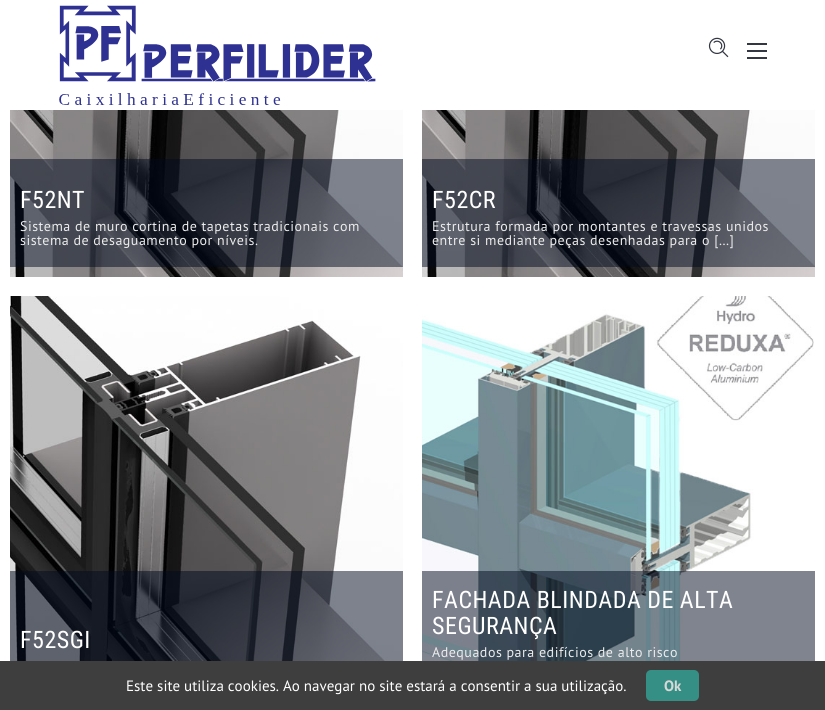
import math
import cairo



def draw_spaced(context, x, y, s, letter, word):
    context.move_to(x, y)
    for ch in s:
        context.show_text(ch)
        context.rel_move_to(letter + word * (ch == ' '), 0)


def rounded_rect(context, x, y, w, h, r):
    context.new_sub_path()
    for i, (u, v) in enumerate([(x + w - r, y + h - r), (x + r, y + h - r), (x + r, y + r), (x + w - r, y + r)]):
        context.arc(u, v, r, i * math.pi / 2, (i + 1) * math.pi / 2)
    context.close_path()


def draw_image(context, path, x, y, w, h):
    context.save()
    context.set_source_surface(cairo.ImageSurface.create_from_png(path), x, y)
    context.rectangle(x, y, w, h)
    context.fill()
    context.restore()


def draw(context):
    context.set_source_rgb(1, 1, 1)
    context.paint()
    draw_image(context, "images/1.png", 59, 5, 317, 100)
    draw_image(context, "images/2.png", 708, 37, 21, 21)
    context.set_source_rgb(51 / 255, 55 / 255, 67 / 255)
    context.rectangle(747, 43, 20, 2)
    context.fill()
    context.rectangle(747, 50, 20, 2)
    context.fill()
    context.rectangle(747, 57, 20, 2)
    context.fill()
    draw_image(context, "images/3.png", 10, 110, 393, 167)
    context.set_source_rgba(0, 10 / 255, 30 / 255, 0.5)
    context.rectangle(10, 159, 393, 108)
    context.fill()
    draw_image(context, "images/4.png", 422, 110, 393, 167)
    context.rectangle(422, 159, 393, 108)
    context.fill()
    draw_image(context, "images/5.png", 10, 296, 393, 365)
    context.rectangle(10, 571, 393, 90)
    context.fill()
    draw_image(context, "images/6.png", 422, 296, 392, 365)
    context.rectangle(422, 571, 393, 90)
    context.fill()
    context.set_source_rgb(63 / 255, 62 / 255, 62 / 255)
    context.rectangle(0, 661, 825, 49)
    context.fill()
    context.set_source_rgb(54 / 255, 143 / 255, 132 / 255)
    rounded_rect(context, 646, 670, 53, 31, 5)
    context.fill()
    context.select_font_face("Roboto Condensed")
    context.set_font_size(24)
    context.set_source_rgb(1, 1, 1)
    draw_spaced(context, 20, 208, "F52NT", 0.5, 0)
    context.select_font_face("PT Sans")
    context.set_font_size(14)
    context.set_source_rgb(236 / 255, 236 / 255, 236 / 255)
    draw_spaced(context, 20, 231, "Sistema de muro cortina de tapetas tradicionais com", 0.5, 0)
    draw_spaced(context, 20, 245, "sistema de desaguamento por níveis.", 0.5, 0)
    context.select_font_face("Roboto Condensed")
    context.set_font_size(24)
    context.set_source_rgb(1, 1, 1)
    draw_spaced(context, 432, 208, "F52CR", 0.5, 0)
    context.select_font_face("PT Sans")
    context.set_font_size(14)
    context.set_source_rgb(236 / 255, 236 / 255, 236 / 255)
    draw_spaced(context, 432, 231, "Estrutura formada por montantes e travessas unidos", 0.5, 0)
    draw_spaced(context, 432, 245, "entre si mediante peças desenhadas para o [...]", 0.5, 0)
    context.select_font_face("Roboto Condensed")
    context.set_font_size(24)
    context.set_source_rgb(1, 1, 1)
    draw_spaced(context, 20, 648, "F52SGI", 0.5, 0)
    draw_spaced(context, 432, 608, "FACHADA BLINDADA DE ALTA", 0.5, 0)
    draw_spaced(context, 432, 634, "SEGURANÇA", 0.5, 0)
    context.select_font_face("PT Sans")
    context.set_font_size(14)
    context.set_source_rgb(236 / 255, 236 / 255, 236 / 255)
    draw_spaced(context, 432, 657, "Adequados para edifícios de alto risco", 0.5, 0)
    context.set_font_size(15)
    context.set_source_rgb(1, 1, 1)
    context.move_to(126, 691)
    context.show_text("Este site utiliza cookies. Ao navegar no site estará a consentir a sua utilização.")
    context.select_font_face("PT Sans", cairo.FontSlant.NORMAL, cairo.FontWeight.BOLD)
    context.set_source_rgb(217 / 255, 216 / 255, 216 / 255)
    context.move_to(664, 691)
    context.show_text("Ok")


surface = cairo.ImageSurface(cairo.Format.RGB24, 825, 710)
context = cairo.Context(surface)
options = cairo.FontOptions()
options.set_hint_metrics(cairo.HintMetrics.OFF)
options.set_hint_style(cairo.HintStyle.NONE)
context.set_font_options(options)
context.set_miter_limit(4)
draw(context)
surface.write_to_png("out.png")
